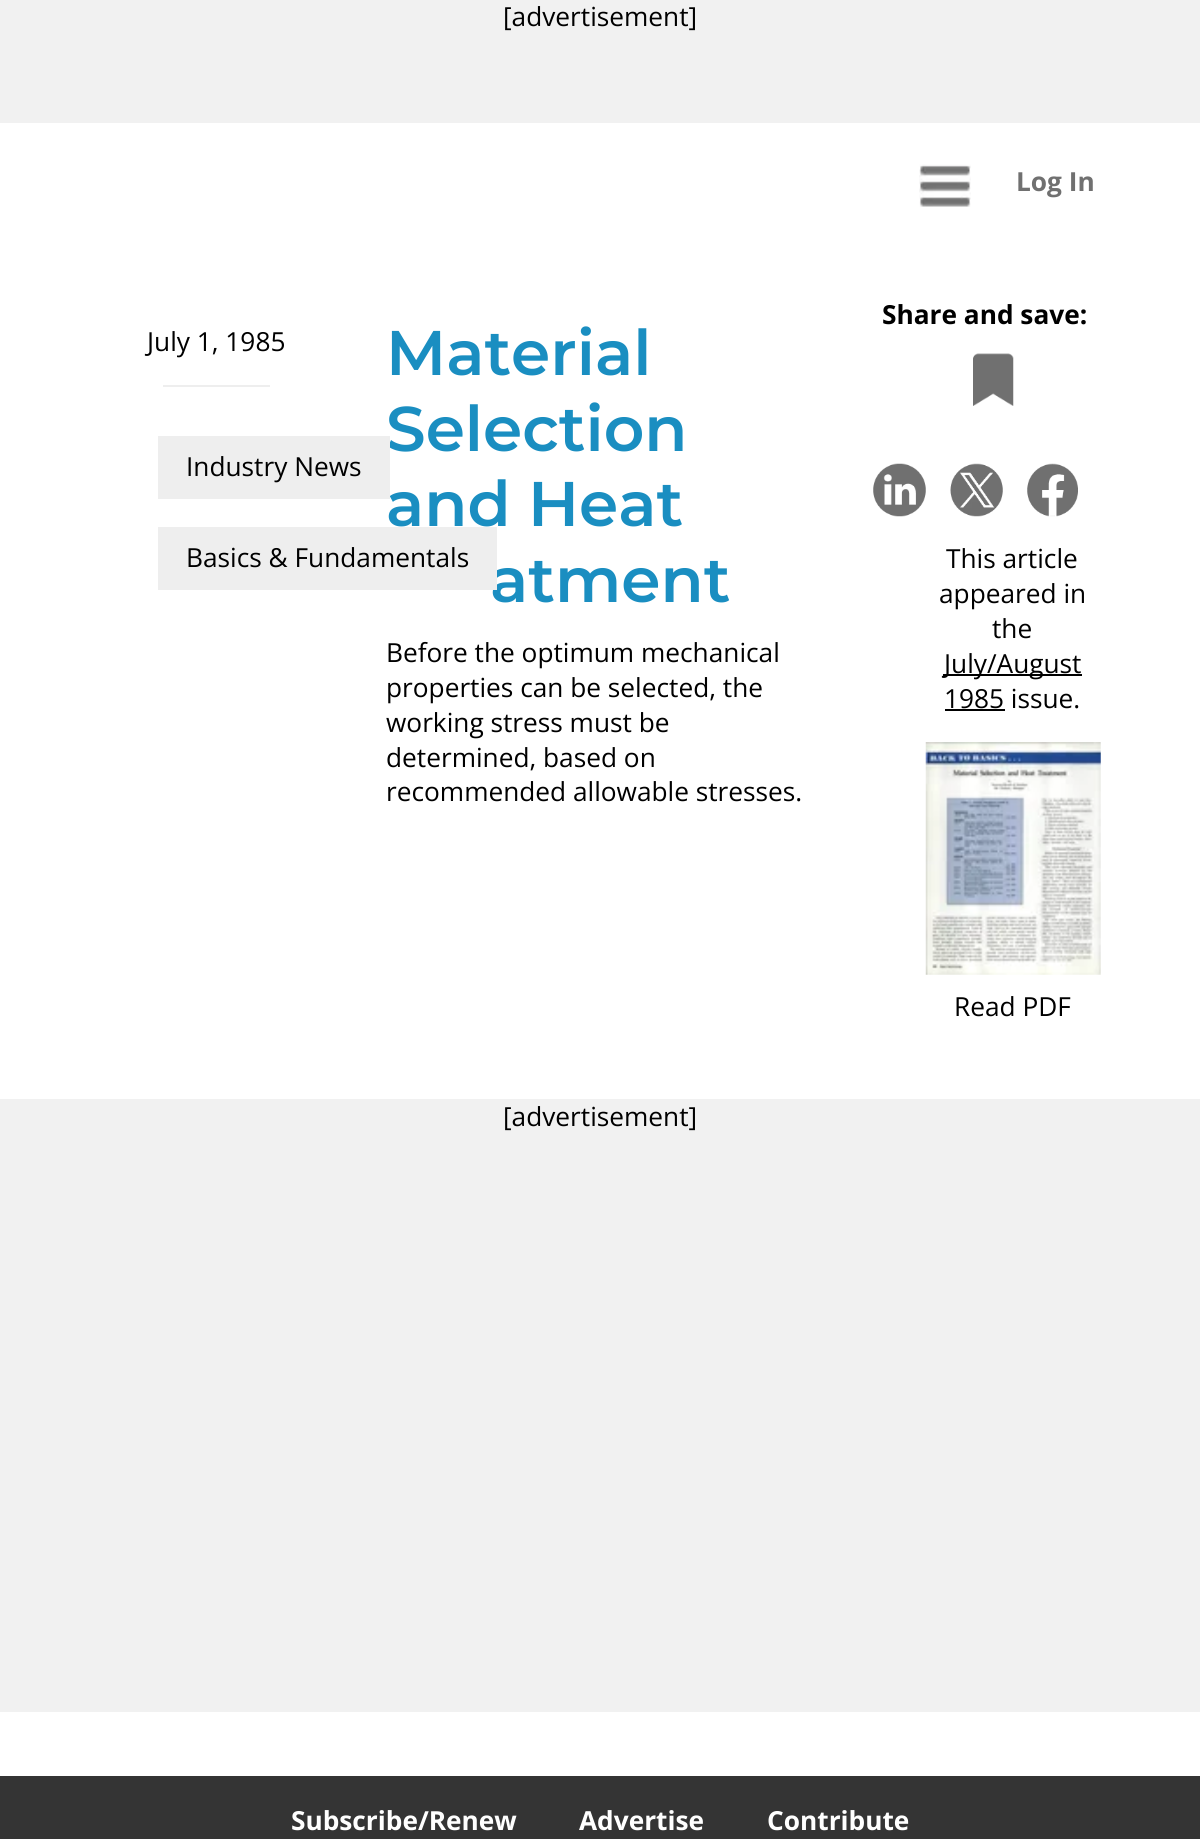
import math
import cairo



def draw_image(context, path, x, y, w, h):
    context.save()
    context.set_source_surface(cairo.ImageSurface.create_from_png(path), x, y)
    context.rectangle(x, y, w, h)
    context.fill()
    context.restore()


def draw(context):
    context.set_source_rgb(1, 1, 1)
    context.paint()
    context.set_source_rgb(241 / 255, 241 / 255, 241 / 255)
    context.rectangle(0, 0, 1200, 123)
    context.fill()
    draw_image(context, "images/1.png", 919, 164, 52, 43)
    context.set_source_rgb(238 / 255, 238 / 255, 238 / 255)
    context.rectangle(163, 385, 107, 2)
    context.fill()
    draw_image(context, "images/2.png", 973, 353, 41, 53)
    draw_image(context, "images/3.png", 873, 463, 53, 54)
    draw_image(context, "images/4.png", 950, 463, 53, 54)
    draw_image(context, "images/5.png", 1027, 463, 51, 54)
    context.set_source_rgb(0, 0, 0)
    context.rectangle(943, 674, 139, 2)
    context.fill()
    context.rectangle(945, 709, 60, 2)
    context.fill()
    draw_image(context, "images/6.png", 925, 742, 176, 233)
    context.set_source_rgb(241 / 255, 241 / 255, 241 / 255)
    context.rectangle(0, 1099, 1200, 613)
    context.fill()
    context.set_source_rgb(52 / 255, 52 / 255, 52 / 255)
    context.rectangle(0, 1776, 1200, 63)
    context.fill()
    context.select_font_face("Open Sans")
    context.set_font_size(26.25)
    context.set_source_rgb(0, 0, 0)
    context.move_to(503, 26)
    context.show_text("[advertisement]")
    context.select_font_face("Open Sans", cairo.FontSlant.NORMAL, cairo.FontWeight.BOLD)
    context.set_source_rgb(112 / 255, 112 / 255, 112 / 255)
    context.move_to(1016, 191)
    context.show_text("Log In")
    context.select_font_face("Open Sans")
    context.set_source_rgb(0, 0, 0)
    context.move_to(147, 351)
    context.show_text("July 1, 1985")
    context.select_font_face("Montserrat SemiBold")
    context.set_font_size(63)
    context.set_source_rgb(26 / 255, 142 / 255, 193 / 255)
    context.move_to(386, 375)
    context.show_text("Material")
    context.move_to(386, 451)
    context.show_text("Selection")
    context.move_to(386, 526)
    context.show_text("and Heat")
    context.set_source_rgb(238 / 255, 238 / 255, 238 / 255)
    context.rectangle(158, 436, 232, 63)
    context.fill()
    context.select_font_face("Open Sans")
    context.set_font_size(26.25)
    context.set_source_rgb(0, 0, 0)
    context.move_to(186, 476)
    context.show_text("Industry News")
    context.select_font_face("Montserrat SemiBold")
    context.set_font_size(63)
    context.set_source_rgb(26 / 255, 142 / 255, 193 / 255)
    context.move_to(490, 602)
    context.show_text("atment")
    context.set_source_rgb(238 / 255, 238 / 255, 238 / 255)
    context.rectangle(158, 527, 339, 63)
    context.fill()
    context.select_font_face("Open Sans")
    context.set_font_size(26.25)
    context.set_source_rgb(0, 0, 0)
    context.move_to(186, 567)
    context.show_text("Basics & Fundamentals")
    context.move_to(386, 662)
    context.show_text("Before the optimum mechanical")
    context.move_to(386, 697)
    context.show_text("properties can be selected, the")
    context.move_to(386, 732)
    context.show_text("working stress must be")
    context.move_to(386, 767)
    context.show_text("determined, based on")
    context.move_to(386, 801)
    context.show_text("recommended allowable stresses.")
    context.select_font_face("Open Sans", cairo.FontSlant.NORMAL, cairo.FontWeight.BOLD)
    context.move_to(882, 324)
    context.show_text("Share and save:")
    context.select_font_face("Open Sans")
    context.move_to(946, 568)
    context.show_text("This article")
    context.move_to(939, 603)
    context.show_text("appeared in")
    context.move_to(992, 638)
    context.show_text("the")
    context.move_to(944, 673)
    context.show_text("July/August")
    context.move_to(944, 708)
    context.show_text("1985 issue.")
    context.move_to(954, 1016)
    context.show_text("Read PDF")
    context.move_to(503, 1126)
    context.show_text("[advertisement]")
    context.select_font_face("Open Sans", cairo.FontSlant.NORMAL, cairo.FontWeight.BOLD)
    context.set_source_rgb(1, 1, 1)
    context.move_to(291, 1830)
    context.show_text("Subscribe/Renew")
    context.move_to(579, 1830)
    context.show_text("Advertise")
    context.move_to(767, 1830)
    context.show_text("Contribute")


surface = cairo.ImageSurface(cairo.Format.RGB24, 1200, 1839)
context = cairo.Context(surface)
options = cairo.FontOptions()
options.set_hint_metrics(cairo.HintMetrics.OFF)
options.set_hint_style(cairo.HintStyle.NONE)
context.set_font_options(options)
context.set_miter_limit(4)
draw(context)
surface.write_to_png("out.png")
